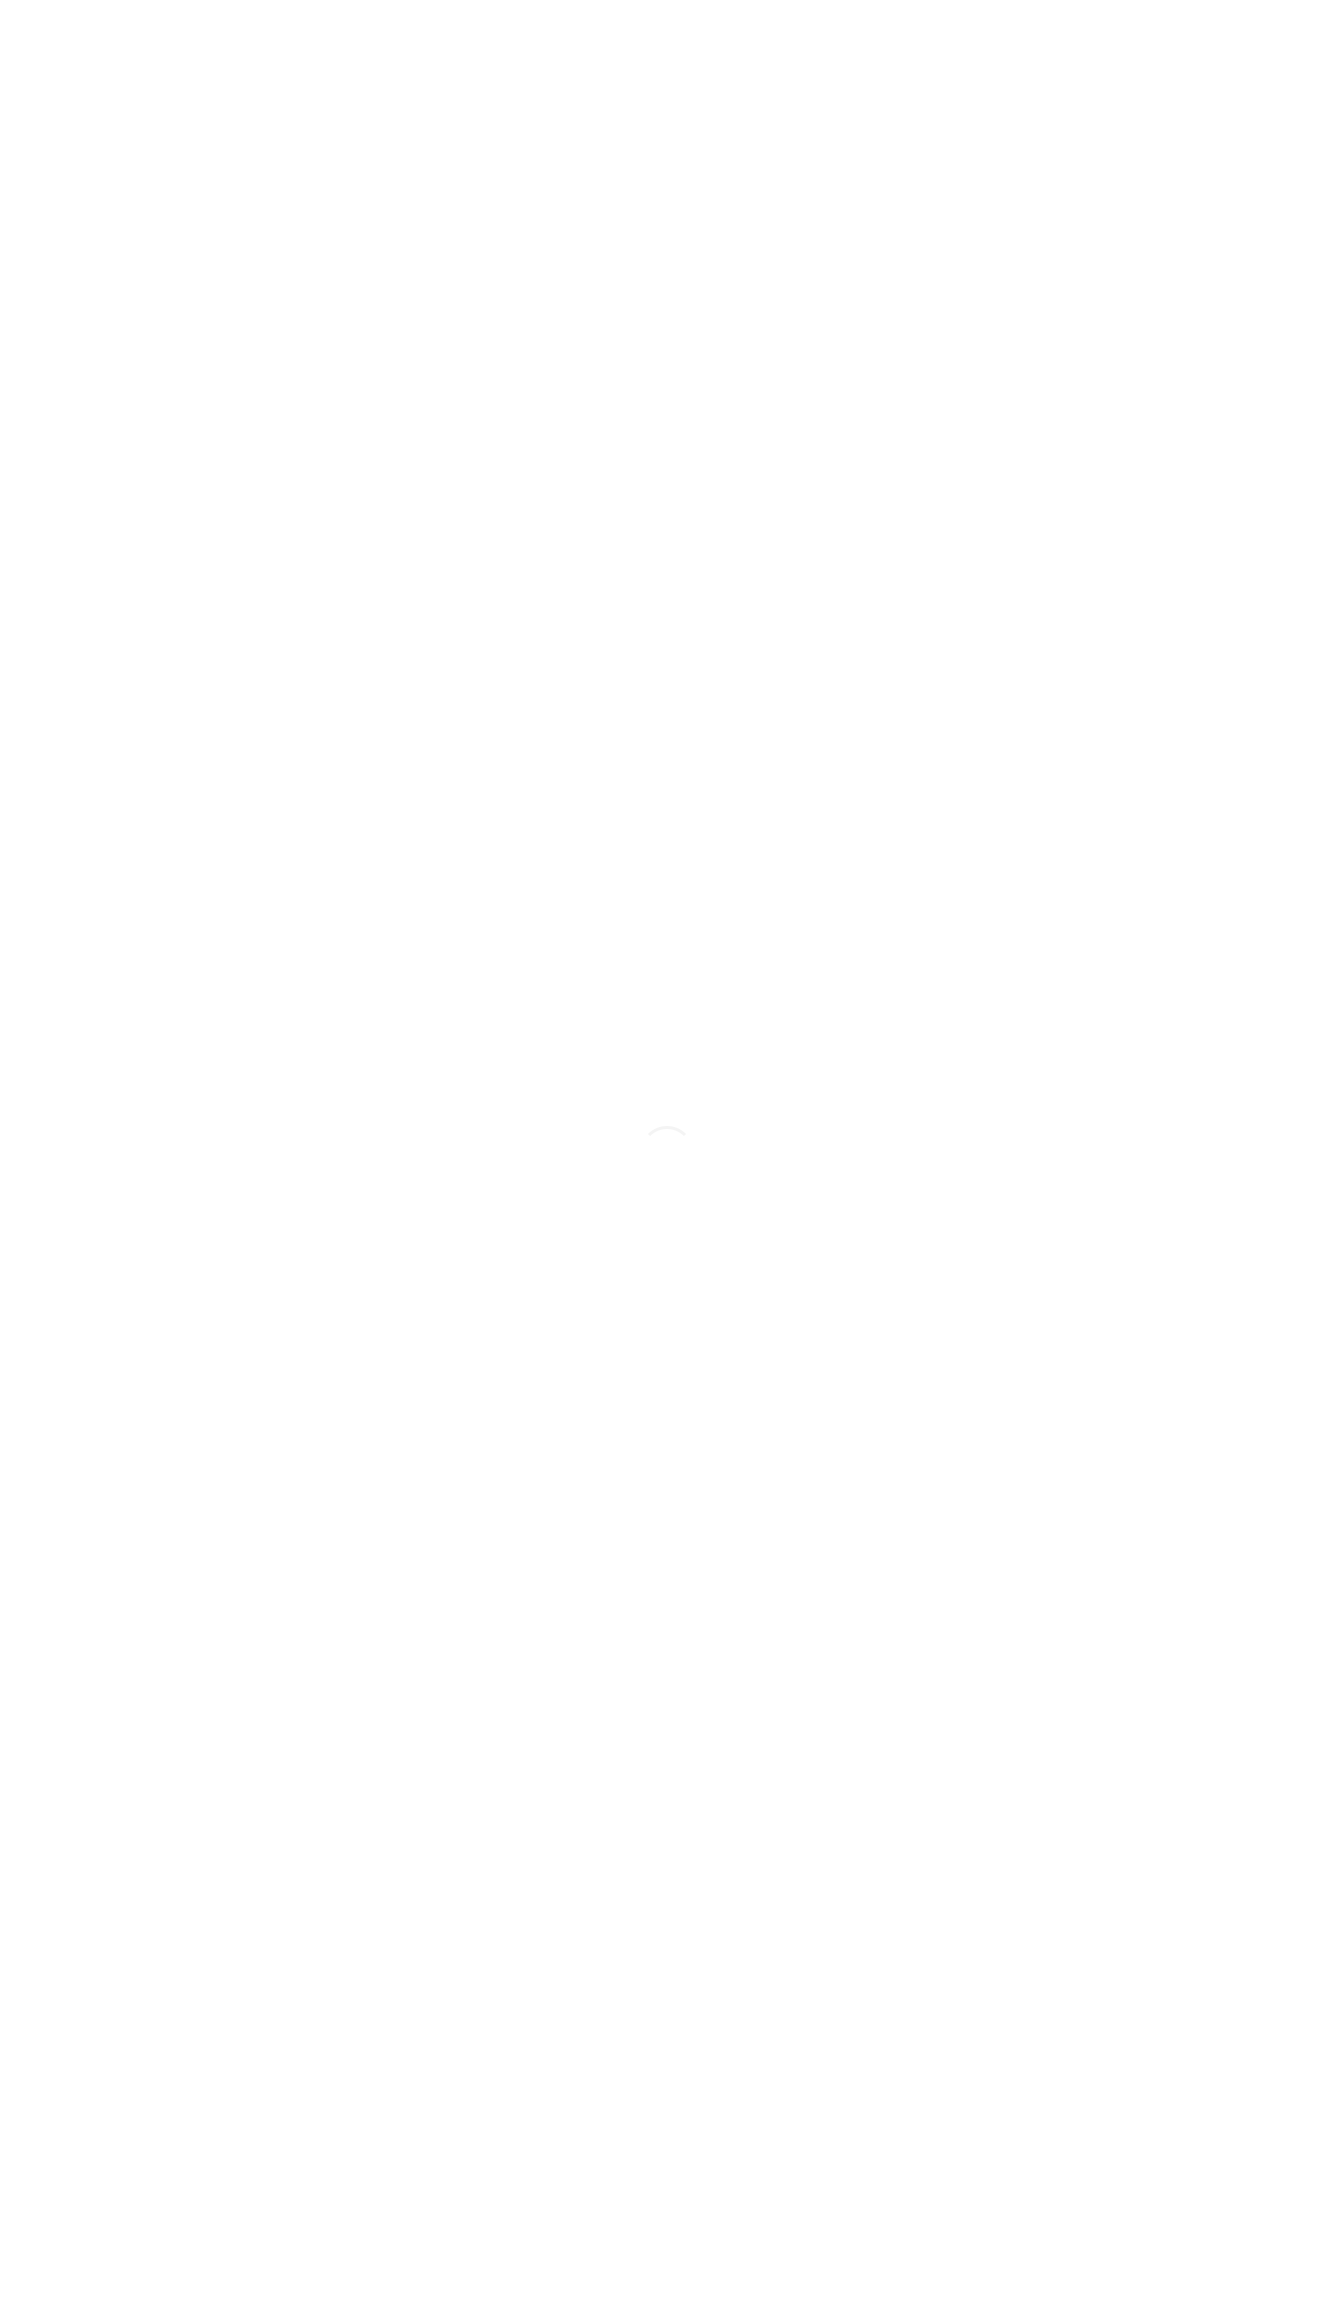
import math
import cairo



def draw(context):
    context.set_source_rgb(1, 1, 1)
    context.paint()
    context.new_path()
    context.move_to(649, 1135)
    context.curve_to(659, 1125, 675, 1125, 685, 1135)
    context.set_source_rgb(244 / 255, 244 / 255, 244 / 255)
    context.set_line_width(3)
    context.stroke()


surface = cairo.ImageSurface(cairo.Format.RGB24, 1331, 2303)
context = cairo.Context(surface)
options = cairo.FontOptions()
options.set_hint_metrics(cairo.HintMetrics.OFF)
options.set_hint_style(cairo.HintStyle.NONE)
context.set_font_options(options)
context.set_miter_limit(4)
draw(context)
surface.write_to_png("out.png")
